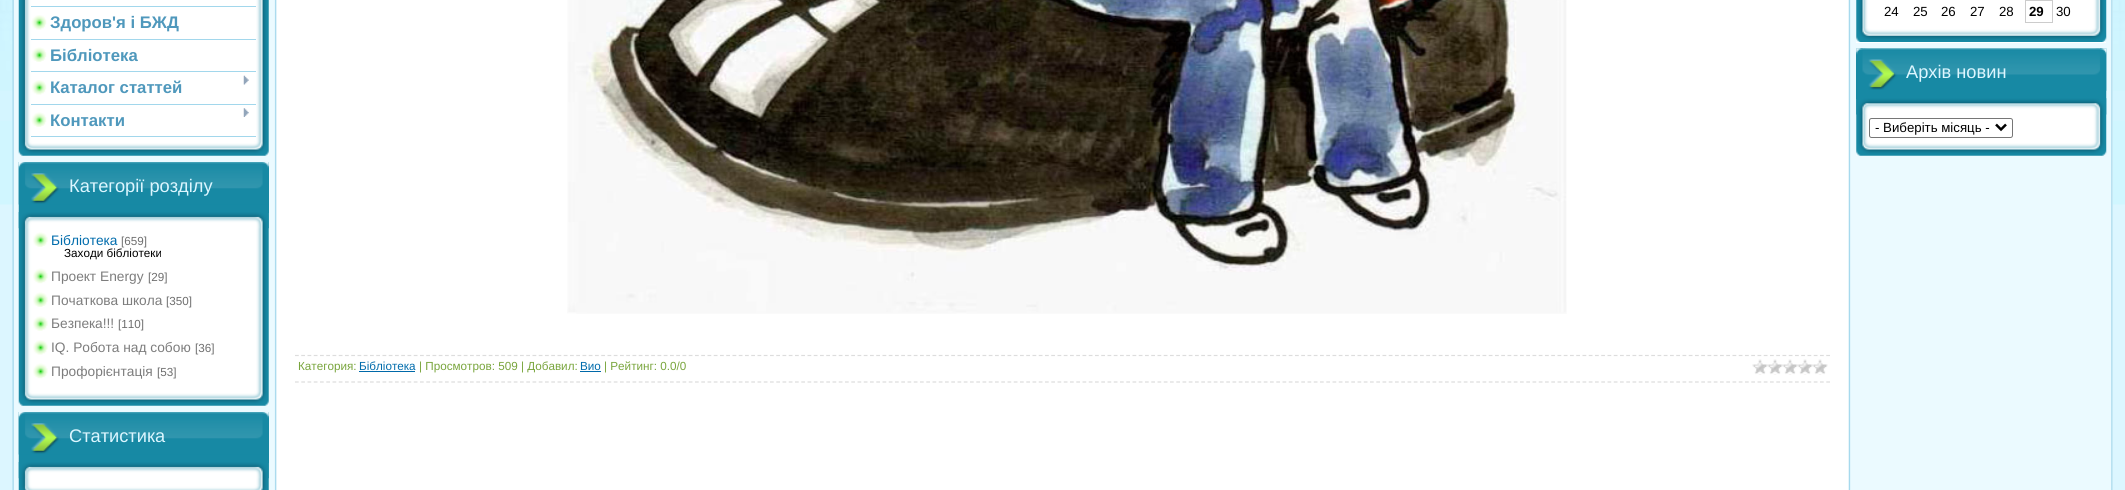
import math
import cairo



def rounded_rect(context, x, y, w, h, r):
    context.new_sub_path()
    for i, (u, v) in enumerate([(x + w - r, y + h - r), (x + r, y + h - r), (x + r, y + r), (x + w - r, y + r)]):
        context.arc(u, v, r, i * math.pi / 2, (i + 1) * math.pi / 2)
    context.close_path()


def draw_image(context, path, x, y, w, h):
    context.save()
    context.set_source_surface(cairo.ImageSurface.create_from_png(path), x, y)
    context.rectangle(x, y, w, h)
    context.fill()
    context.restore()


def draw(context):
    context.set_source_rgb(220 / 255, 246 / 255, 1)
    context.paint()
    draw_image(context, "images/1.png", 0, 0, 2125, 205)
    context.set_source_rgb(235 / 255, 250 / 255, 1)
    context.rectangle(2112, 0, 1, 490)
    context.fill()
    draw_image(context, "images/2.png", 12, 0, 269, 490)
    context.set_source_rgb(1, 1, 1)
    context.rectangle(19, 0, 250, 156)
    context.fill()
    draw_image(context, "images/3.png", 18, 0, 251, 156)
    context.set_source_rgb(162 / 255, 215 / 255, 236 / 255)
    context.rectangle(31, 6, 225, 1)
    context.fill()
    draw_image(context, "images/4.png", 31, 15, 16, 15)
    context.rectangle(31, 39, 225, 1)
    context.fill()
    draw_image(context, "images/5.png", 31, 47, 16, 15)
    context.rectangle(31, 71, 225, 1)
    context.fill()
    draw_image(context, "images/4.png", 31, 80, 16, 15)
    context.rectangle(31, 104, 225, 1)
    context.fill()
    draw_image(context, "images/6.png", 243, 75, 6, 10)
    draw_image(context, "images/5.png", 31, 112, 16, 15)
    context.rectangle(31, 136, 225, 1)
    context.fill()
    draw_image(context, "images/7.png", 243, 108, 6, 9)
    context.set_source_rgb(1, 1, 1)
    context.rectangle(19, 213, 250, 193)
    context.fill()
    draw_image(context, "images/8.png", 18, 162, 251, 244)
    context.set_source_rgb(23 / 255, 137 / 255, 164 / 255)
    context.rectangle(20, 163, 249, 50)
    context.fill()
    draw_image(context, "images/9.png", 18, 162, 251, 43)
    draw_image(context, "images/10.png", 18, 212, 251, 17)
    draw_image(context, "images/11.png", 33, 232, 15, 15)
    draw_image(context, "images/12.png", 33, 268, 15, 16)
    draw_image(context, "images/11.png", 33, 292, 15, 15)
    draw_image(context, "images/13.png", 33, 316, 15, 15)
    draw_image(context, "images/14.png", 33, 340, 15, 15)
    draw_image(context, "images/15.png", 33, 363, 15, 16)
    draw_image(context, "images/16.png", 18, 412, 251, 78)
    context.rectangle(20, 413, 249, 50)
    context.fill()
    draw_image(context, "images/17.png", 18, 412, 251, 43)
    draw_image(context, "images/10.png", 18, 462, 251, 17)
    context.set_source_rgb(1, 1, 1)
    context.rectangle(281, 0, 1563, 490)
    context.fill()
    draw_image(context, "images/18.png", 567, 0, 1000, 314)
    context.new_path()
    context.move_to(295, 355.5)
    context.line_to(1830, 355.5)
    context.set_source_rgb(221 / 255, 221 / 255, 221 / 255)
    context.set_line_width(1.2)
    context.set_dash([3.75, 2.5])
    context.stroke()
    context.new_path()
    context.move_to(295, 382)
    context.line_to(1830, 382)
    context.stroke()
    context.set_source_rgb(0, 105 / 255, 169 / 255)
    context.rectangle(359, 371, 56, 1)
    context.fill()
    context.rectangle(580, 371, 21, 1)
    context.fill()
    draw_image(context, "images/19.png", 1752, 359, 76, 16)
    draw_image(context, "images/20.png", 1844, 0, 269, 490)
    context.set_source_rgb(1, 1, 1)
    context.rectangle(1856, 0, 250, 43)
    context.fill()
    draw_image(context, "images/21.png", 1856, 0, 251, 42)
    context.rectangle(2025.5, 0.5, 27, 22)
    context.set_source_rgb(204 / 255, 204 / 255, 204 / 255)
    context.set_line_width(1)
    context.set_dash([])
    context.stroke()
    context.set_source_rgb(1, 1, 1)
    context.rectangle(1856, 99, 250, 57)
    context.fill()
    draw_image(context, "images/22.png", 1856, 48, 251, 108)
    context.set_source_rgb(23 / 255, 137 / 255, 164 / 255)
    context.rectangle(1856, 49, 249, 50)
    context.fill()
    draw_image(context, "images/23.png", 1856, 48, 251, 43)
    draw_image(context, "images/24.png", 1856, 98, 251, 17)
    rounded_rect(context, 1869.5, 118.5, 143, 19, 2)
    context.set_source_rgb(118 / 255, 118 / 255, 118 / 255)
    context.stroke()
    context.new_path()
    context.move_to(1996, 124.5)
    context.line_to(2001, 129.5)
    context.line_to(2006, 124.5)
    context.set_source_rgb(0, 0, 0)
    context.set_line_width(2.5)
    context.stroke()
    context.select_font_face("Liberation Sans", cairo.FontSlant.NORMAL, cairo.FontWeight.BOLD)
    context.set_font_size(16.75)
    context.set_source_rgb(79 / 255, 152 / 255, 188 / 255)
    context.move_to(50, 28)
    context.show_text("Здоров'я і БЖД")
    context.move_to(50, 61)
    context.show_text("Бібліотека")
    context.move_to(50, 93)
    context.show_text("Каталог статтей")
    context.move_to(50, 126)
    context.show_text("Контакти")
    context.select_font_face("Liberation Sans")
    context.set_font_size(18.25)
    context.set_source_rgb(220 / 255, 246 / 255, 1)
    context.move_to(69, 192)
    context.show_text("Категорії розділу")
    context.set_font_size(13.75)
    context.set_source_rgb(1 / 255, 108 / 255, 172 / 255)
    context.move_to(51, 245)
    context.show_text("Бібліотека")
    context.set_font_size(11.7)
    context.set_source_rgb(110 / 255, 110 / 255, 110 / 255)
    context.move_to(121, 245)
    context.show_text("[659]")
    context.set_source_rgb(0, 0, 0)
    context.move_to(64, 257)
    context.show_text("Заходи бібліотеки")
    context.set_font_size(13.75)
    context.set_source_rgb(125 / 255, 125 / 255, 125 / 255)
    context.move_to(51, 281)
    context.show_text("Проект Energy")
    context.set_font_size(11.7)
    context.set_source_rgb(110 / 255, 110 / 255, 110 / 255)
    context.move_to(148, 281)
    context.show_text("[29]")
    context.set_font_size(13.75)
    context.set_source_rgb(125 / 255, 125 / 255, 125 / 255)
    context.move_to(51, 305)
    context.show_text("Початкова школа")
    context.set_font_size(11.7)
    context.set_source_rgb(110 / 255, 110 / 255, 110 / 255)
    context.move_to(166, 305)
    context.show_text("[350]")
    context.set_font_size(13.75)
    context.set_source_rgb(125 / 255, 125 / 255, 125 / 255)
    context.move_to(51, 328)
    context.show_text("Безпека!!!")
    context.set_font_size(11.7)
    context.set_source_rgb(110 / 255, 110 / 255, 110 / 255)
    context.move_to(118, 328)
    context.show_text("[110]")
    context.set_font_size(13.75)
    context.set_source_rgb(125 / 255, 125 / 255, 125 / 255)
    context.move_to(51, 352)
    context.show_text("IQ. Робота над собою")
    context.set_font_size(11.7)
    context.set_source_rgb(110 / 255, 110 / 255, 110 / 255)
    context.move_to(195, 352)
    context.show_text("[36]")
    context.set_font_size(13.75)
    context.set_source_rgb(125 / 255, 125 / 255, 125 / 255)
    context.move_to(51, 376)
    context.show_text("Профорієнтація")
    context.set_font_size(11.7)
    context.set_source_rgb(110 / 255, 110 / 255, 110 / 255)
    context.move_to(157, 376)
    context.show_text("[53]")
    context.set_font_size(18.25)
    context.set_source_rgb(220 / 255, 246 / 255, 1)
    context.move_to(69, 442)
    context.show_text("Статистика")
    context.set_font_size(11.7)
    context.set_source_rgb(121 / 255, 165 / 255, 61 / 255)
    context.move_to(298, 370)
    context.show_text("Категория:")
    context.set_source_rgb(1 / 255, 108 / 255, 172 / 255)
    context.move_to(359, 370)
    context.show_text("Бібліотека")
    context.set_source_rgb(121 / 255, 165 / 255, 61 / 255)
    context.move_to(419, 370)
    context.show_text("| Просмотров: 509 | Добавил:")
    context.set_source_rgb(1 / 255, 108 / 255, 172 / 255)
    context.move_to(580, 370)
    context.show_text("Вио")
    context.set_source_rgb(121 / 255, 165 / 255, 61 / 255)
    context.move_to(604, 370)
    context.show_text("| Рейтинг: 0.0/0")
    context.set_font_size(13.25)
    context.set_source_rgb(0, 0, 0)
    context.move_to(1884, 16)
    context.show_text("24")
    context.move_to(1913, 16)
    context.show_text("25")
    context.move_to(1941, 16)
    context.show_text("26")
    context.move_to(1970, 16)
    context.show_text("27")
    context.move_to(1999, 16)
    context.show_text("28")
    context.select_font_face("Liberation Sans", cairo.FontSlant.NORMAL, cairo.FontWeight.BOLD)
    context.move_to(2029, 16)
    context.show_text("29")
    context.select_font_face("Liberation Sans")
    context.move_to(2056, 16)
    context.show_text("30")
    context.set_font_size(18.25)
    context.set_source_rgb(220 / 255, 246 / 255, 1)
    context.move_to(1906, 78)
    context.show_text("Архів новин")
    context.set_font_size(13.25)
    context.set_source_rgb(0, 0, 0)
    context.move_to(1875, 132)
    context.show_text("- Виберіть місяць -")


surface = cairo.ImageSurface(cairo.Format.RGB24, 2125, 490)
context = cairo.Context(surface)
options = cairo.FontOptions()
options.set_hint_metrics(cairo.HintMetrics.OFF)
options.set_hint_style(cairo.HintStyle.NONE)
context.set_font_options(options)
context.set_miter_limit(4)
draw(context)
surface.write_to_png("out.png")
